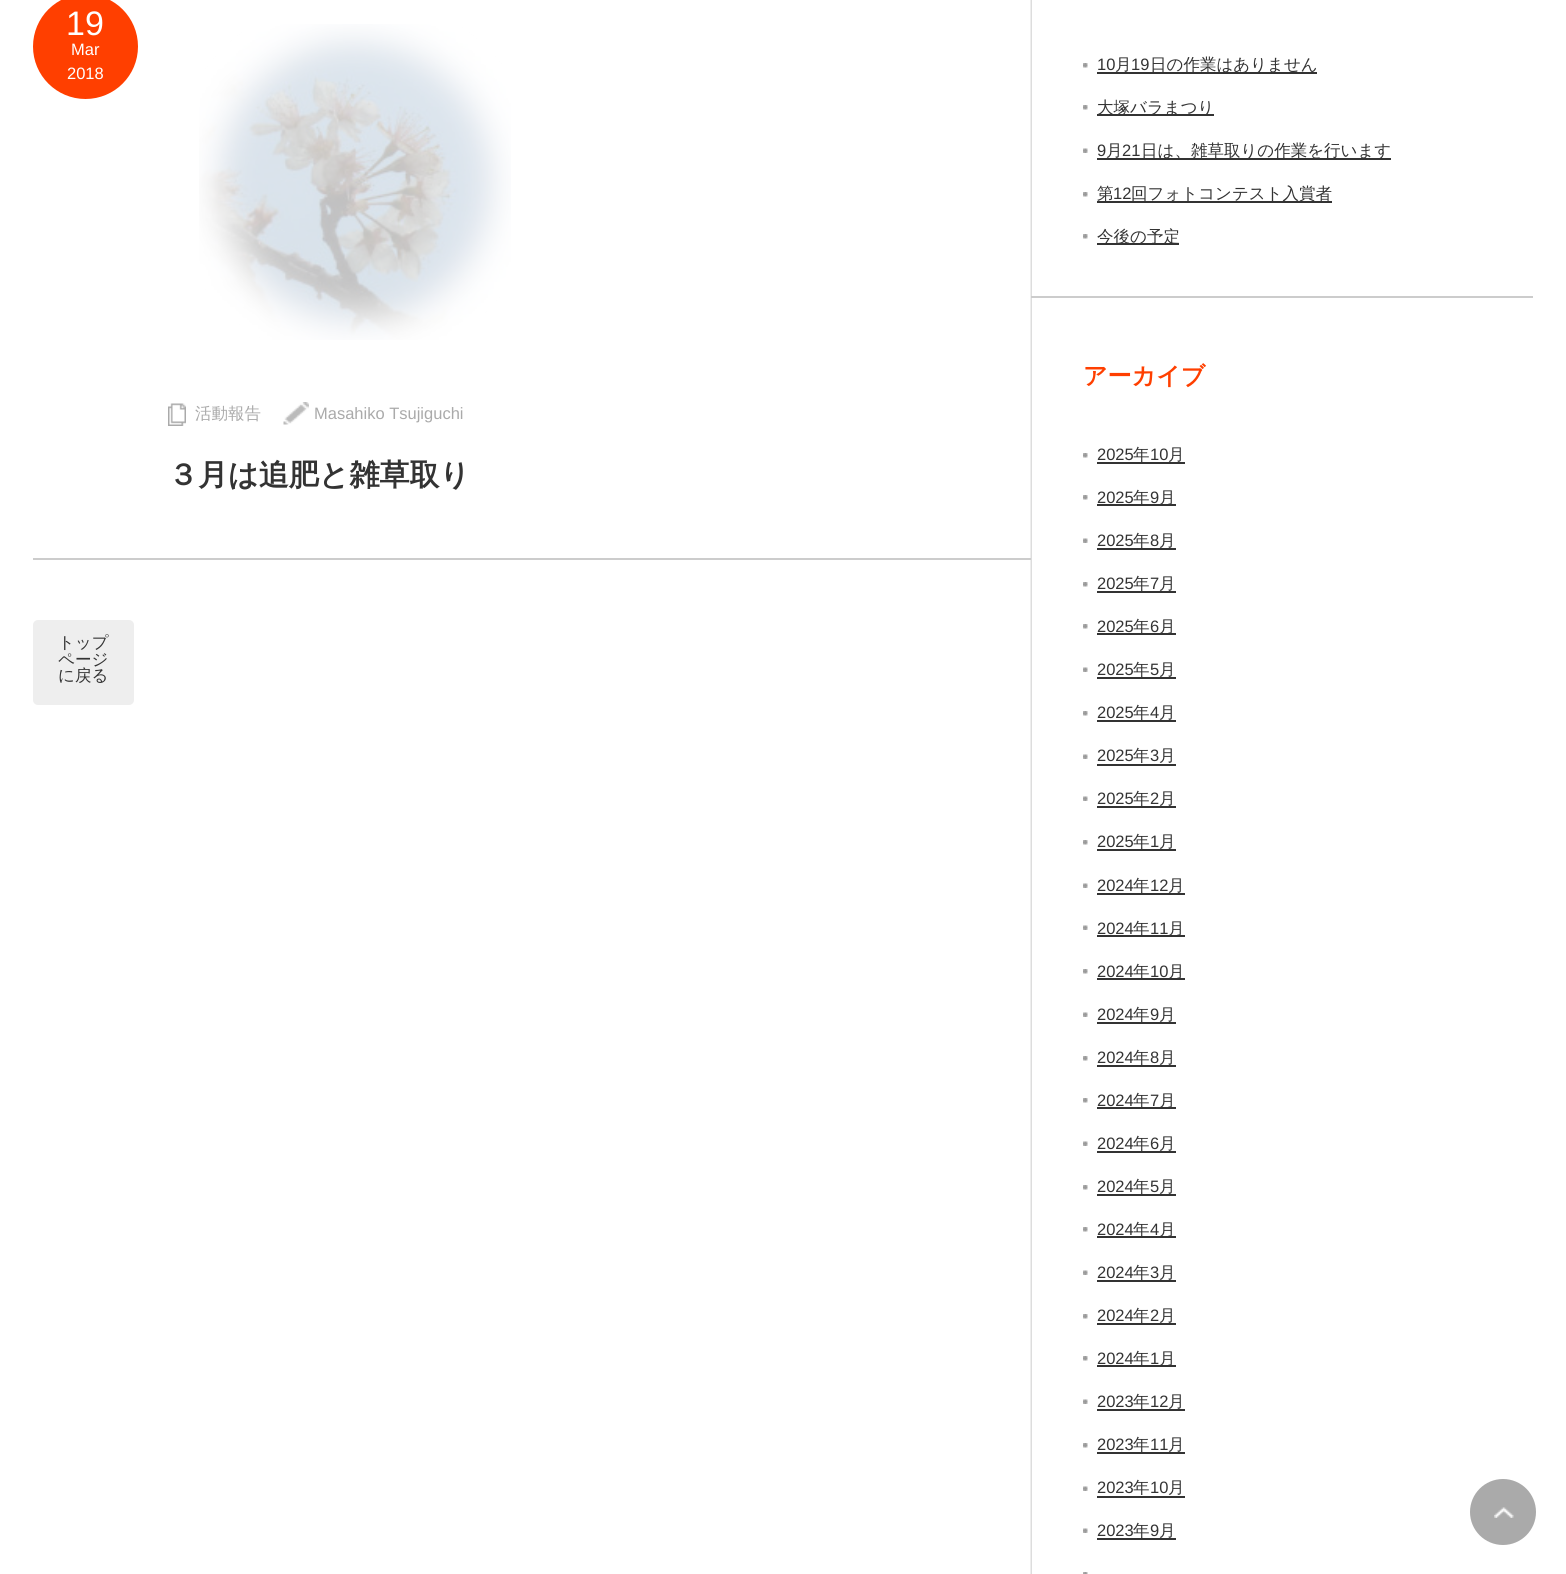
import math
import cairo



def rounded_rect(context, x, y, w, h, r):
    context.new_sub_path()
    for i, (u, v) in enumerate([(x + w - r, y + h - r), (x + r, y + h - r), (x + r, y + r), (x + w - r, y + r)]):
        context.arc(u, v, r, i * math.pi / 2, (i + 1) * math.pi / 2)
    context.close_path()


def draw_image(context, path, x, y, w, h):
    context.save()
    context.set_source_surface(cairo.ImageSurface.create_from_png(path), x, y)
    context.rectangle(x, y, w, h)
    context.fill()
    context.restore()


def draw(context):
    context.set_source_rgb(1, 1, 1)
    context.paint()
    draw_image(context, "images/1.png", 1030, 0, 2, 1574)
    context.set_source_rgb(204 / 255, 204 / 255, 204 / 255)
    context.rectangle(33, 558, 998, 2)
    context.fill()
    context.set_source_rgb(1, 63 / 255, 0)
    context.arc(85.5, 46.5, 52.5, 0, 2 * math.pi)
    context.fill()
    draw_image(context, "images/2.png", 199, 24, 312, 316)
    draw_image(context, "images/3.png", 168, 403, 18, 23)
    draw_image(context, "images/4.png", 283, 402, 26, 23)
    context.set_source_rgb(238 / 255, 238 / 255, 238 / 255)
    rounded_rect(context, 33, 620, 101, 85, 5)
    context.fill()
    context.set_source_rgb(204 / 255, 204 / 255, 204 / 255)
    context.rectangle(1031, 296, 502, 2)
    context.fill()
    draw_image(context, "images/5.png", 1083, 63, 5, 5)
    context.set_source_rgb(51 / 255, 51 / 255, 51 / 255)
    context.rectangle(1097, 72, 220, 2)
    context.fill()
    draw_image(context, "images/5.png", 1083, 105, 5, 5)
    context.rectangle(1097, 114, 117, 2)
    context.fill()
    draw_image(context, "images/6.png", 1083, 148, 5, 5)
    context.rectangle(1097, 158, 294, 2)
    context.fill()
    draw_image(context, "images/5.png", 1083, 192, 5, 5)
    context.rectangle(1097, 201, 235, 2)
    context.fill()
    draw_image(context, "images/5.png", 1083, 234, 5, 5)
    context.rectangle(1097, 243, 82, 2)
    context.fill()
    draw_image(context, "images/5.png", 1083, 453, 5, 5)
    context.rectangle(1097, 462, 88, 2)
    context.fill()
    draw_image(context, "images/5.png", 1083, 495, 5, 5)
    context.rectangle(1097, 504, 79, 2)
    context.fill()
    draw_image(context, "images/6.png", 1083, 538, 5, 5)
    context.rectangle(1097, 548, 79, 2)
    context.fill()
    draw_image(context, "images/5.png", 1083, 582, 5, 5)
    context.rectangle(1097, 591, 79, 2)
    context.fill()
    draw_image(context, "images/5.png", 1083, 624, 5, 5)
    context.rectangle(1097, 633, 79, 2)
    context.fill()
    draw_image(context, "images/6.png", 1083, 667, 5, 5)
    context.rectangle(1097, 677, 79, 2)
    context.fill()
    draw_image(context, "images/5.png", 1083, 711, 5, 5)
    context.rectangle(1097, 720, 79, 2)
    context.fill()
    draw_image(context, "images/6.png", 1083, 754, 5, 5)
    context.rectangle(1097, 764, 79, 2)
    context.fill()
    draw_image(context, "images/6.png", 1083, 796, 5, 5)
    context.rectangle(1097, 806, 79, 2)
    context.fill()
    draw_image(context, "images/5.png", 1083, 840, 5, 5)
    context.rectangle(1097, 849, 79, 2)
    context.fill()
    draw_image(context, "images/6.png", 1083, 883, 5, 5)
    context.rectangle(1097, 893, 88, 2)
    context.fill()
    draw_image(context, "images/6.png", 1083, 925, 5, 5)
    context.rectangle(1097, 935, 88, 2)
    context.fill()
    draw_image(context, "images/5.png", 1083, 969, 5, 5)
    context.rectangle(1097, 978, 88, 2)
    context.fill()
    draw_image(context, "images/6.png", 1083, 1012, 5, 5)
    context.rectangle(1097, 1022, 79, 2)
    context.fill()
    draw_image(context, "images/5.png", 1083, 1056, 5, 5)
    context.rectangle(1097, 1065, 79, 2)
    context.fill()
    draw_image(context, "images/5.png", 1083, 1098, 5, 5)
    context.rectangle(1097, 1107, 79, 2)
    context.fill()
    draw_image(context, "images/6.png", 1083, 1141, 5, 5)
    context.rectangle(1097, 1151, 79, 2)
    context.fill()
    draw_image(context, "images/5.png", 1083, 1185, 5, 5)
    context.rectangle(1097, 1194, 79, 2)
    context.fill()
    draw_image(context, "images/5.png", 1083, 1227, 5, 5)
    context.rectangle(1097, 1236, 79, 2)
    context.fill()
    draw_image(context, "images/6.png", 1083, 1270, 5, 5)
    context.rectangle(1097, 1280, 79, 2)
    context.fill()
    draw_image(context, "images/5.png", 1083, 1314, 5, 5)
    context.rectangle(1097, 1323, 79, 2)
    context.fill()
    draw_image(context, "images/5.png", 1083, 1356, 5, 5)
    context.rectangle(1097, 1365, 79, 2)
    context.fill()
    draw_image(context, "images/6.png", 1083, 1399, 5, 5)
    context.rectangle(1097, 1409, 88, 2)
    context.fill()
    draw_image(context, "images/5.png", 1083, 1443, 5, 5)
    context.rectangle(1097, 1452, 88, 2)
    context.fill()
    draw_image(context, "images/6.png", 1083, 1486, 5, 5)
    context.rectangle(1097, 1496, 88, 2)
    context.fill()
    draw_image(context, "images/6.png", 1083, 1528, 5, 5)
    context.rectangle(1097, 1538, 79, 2)
    context.fill()
    draw_image(context, "images/7.png", 1083, 1572, 5, 2)
    context.set_source_rgb(170 / 255, 170 / 255, 170 / 255)
    context.arc(1503, 1512, 33, 0, 2 * math.pi)
    context.fill()
    draw_image(context, "images/8.png", 1494, 1507, 20, 11)
    context.select_font_face("Liberation Sans")
    context.set_font_size(34)
    context.set_source_rgb(1, 1, 1)
    context.move_to(66, 35)
    context.show_text("19")
    context.set_font_size(16.5)
    context.move_to(71, 55)
    context.show_text("Mar")
    context.move_to(67, 79)
    context.show_text("2018")
    context.select_font_face("WenQuanYi Zen Hei Medium")
    context.set_source_rgb(170 / 255, 170 / 255, 170 / 255)
    context.move_to(195, 419)
    context.show_text("活動報告")
    context.select_font_face("Liberation Sans")
    context.move_to(314, 419)
    context.show_text("Masahiko Tsujiguchi")
    context.select_font_face("WenQuanYi Zen Hei", cairo.FontSlant.NORMAL, cairo.FontWeight.BOLD)
    context.set_font_size(30)
    context.set_source_rgb(51 / 255, 51 / 255, 51 / 255)
    context.move_to(168, 485)
    context.show_text("３月は追肥と雑草取り")
    context.select_font_face("WenQuanYi Zen Hei Medium")
    context.set_font_size(16.5)
    context.move_to(58, 648)
    context.show_text("トップ")
    context.move_to(58, 665)
    context.show_text("ページ")
    context.move_to(58, 681)
    context.show_text("に戻る")
    context.select_font_face("Liberation Sans")
    context.move_to(1097, 70)
    context.show_text("10")
    context.select_font_face("WenQuanYi Zen Hei Medium")
    context.move_to(1115, 70)
    context.show_text("月")
    context.select_font_face("Liberation Sans")
    context.move_to(1131, 70)
    context.show_text("19")
    context.select_font_face("WenQuanYi Zen Hei Medium")
    context.move_to(1150, 70)
    context.show_text("日の作業はありません")
    context.move_to(1097, 113)
    context.show_text("大塚バラまつり")
    context.select_font_face("Liberation Sans")
    context.move_to(1097, 156)
    context.show_text("9")
    context.select_font_face("WenQuanYi Zen Hei Medium")
    context.move_to(1106, 156)
    context.show_text("月")
    context.select_font_face("Liberation Sans")
    context.move_to(1122, 156)
    context.show_text("21")
    context.select_font_face("WenQuanYi Zen Hei Medium")
    context.move_to(1141, 156)
    context.show_text("日は、雑草取りの作業を行います")
    context.move_to(1097, 199)
    context.show_text("第")
    context.select_font_face("Liberation Sans")
    context.move_to(1113, 199)
    context.show_text("12")
    context.select_font_face("WenQuanYi Zen Hei Medium")
    context.move_to(1131, 199)
    context.show_text("回フォトコンテスト入賞者")
    context.move_to(1097, 242)
    context.show_text("今後の予定")
    context.select_font_face("WenQuanYi Zen Hei", cairo.FontSlant.NORMAL, cairo.FontWeight.BOLD)
    context.set_font_size(24)
    context.set_source_rgb(1, 63 / 255, 0)
    context.move_to(1083, 384)
    context.show_text("アーカイブ")
    context.select_font_face("Liberation Sans")
    context.set_font_size(16.5)
    context.set_source_rgb(51 / 255, 51 / 255, 51 / 255)
    context.move_to(1097, 460)
    context.show_text("2025")
    context.select_font_face("WenQuanYi Zen Hei Medium")
    context.move_to(1133, 460)
    context.show_text("年")
    context.select_font_face("Liberation Sans")
    context.move_to(1150, 460)
    context.show_text("10")
    context.select_font_face("WenQuanYi Zen Hei Medium")
    context.move_to(1168, 460)
    context.show_text("月")
    context.select_font_face("Liberation Sans")
    context.move_to(1097, 503)
    context.show_text("2025")
    context.select_font_face("WenQuanYi Zen Hei Medium")
    context.move_to(1133, 503)
    context.show_text("年")
    context.select_font_face("Liberation Sans")
    context.move_to(1150, 503)
    context.show_text("9")
    context.select_font_face("WenQuanYi Zen Hei Medium")
    context.move_to(1159, 503)
    context.show_text("月")
    context.select_font_face("Liberation Sans")
    context.move_to(1097, 546)
    context.show_text("2025")
    context.select_font_face("WenQuanYi Zen Hei Medium")
    context.move_to(1133, 546)
    context.show_text("年")
    context.select_font_face("Liberation Sans")
    context.move_to(1150, 546)
    context.show_text("8")
    context.select_font_face("WenQuanYi Zen Hei Medium")
    context.move_to(1159, 546)
    context.show_text("月")
    context.select_font_face("Liberation Sans")
    context.move_to(1097, 589)
    context.show_text("2025")
    context.select_font_face("WenQuanYi Zen Hei Medium")
    context.move_to(1133, 589)
    context.show_text("年")
    context.select_font_face("Liberation Sans")
    context.move_to(1150, 589)
    context.show_text("7")
    context.select_font_face("WenQuanYi Zen Hei Medium")
    context.move_to(1159, 589)
    context.show_text("月")
    context.select_font_face("Liberation Sans")
    context.move_to(1097, 632)
    context.show_text("2025")
    context.select_font_face("WenQuanYi Zen Hei Medium")
    context.move_to(1133, 632)
    context.show_text("年")
    context.select_font_face("Liberation Sans")
    context.move_to(1150, 632)
    context.show_text("6")
    context.select_font_face("WenQuanYi Zen Hei Medium")
    context.move_to(1159, 632)
    context.show_text("月")
    context.select_font_face("Liberation Sans")
    context.move_to(1097, 675)
    context.show_text("2025")
    context.select_font_face("WenQuanYi Zen Hei Medium")
    context.move_to(1133, 675)
    context.show_text("年")
    context.select_font_face("Liberation Sans")
    context.move_to(1150, 675)
    context.show_text("5")
    context.select_font_face("WenQuanYi Zen Hei Medium")
    context.move_to(1159, 675)
    context.show_text("月")
    context.select_font_face("Liberation Sans")
    context.move_to(1097, 718)
    context.show_text("2025")
    context.select_font_face("WenQuanYi Zen Hei Medium")
    context.move_to(1133, 718)
    context.show_text("年")
    context.select_font_face("Liberation Sans")
    context.move_to(1150, 718)
    context.show_text("4")
    context.select_font_face("WenQuanYi Zen Hei Medium")
    context.move_to(1159, 718)
    context.show_text("月")
    context.select_font_face("Liberation Sans")
    context.move_to(1097, 761)
    context.show_text("2025")
    context.select_font_face("WenQuanYi Zen Hei Medium")
    context.move_to(1133, 761)
    context.show_text("年")
    context.select_font_face("Liberation Sans")
    context.move_to(1150, 761)
    context.show_text("3")
    context.select_font_face("WenQuanYi Zen Hei Medium")
    context.move_to(1159, 761)
    context.show_text("月")
    context.select_font_face("Liberation Sans")
    context.move_to(1097, 804)
    context.show_text("2025")
    context.select_font_face("WenQuanYi Zen Hei Medium")
    context.move_to(1133, 804)
    context.show_text("年")
    context.select_font_face("Liberation Sans")
    context.move_to(1150, 804)
    context.show_text("2")
    context.select_font_face("WenQuanYi Zen Hei Medium")
    context.move_to(1159, 804)
    context.show_text("月")
    context.select_font_face("Liberation Sans")
    context.move_to(1097, 847)
    context.show_text("2025")
    context.select_font_face("WenQuanYi Zen Hei Medium")
    context.move_to(1133, 847)
    context.show_text("年")
    context.select_font_face("Liberation Sans")
    context.move_to(1150, 847)
    context.show_text("1")
    context.select_font_face("WenQuanYi Zen Hei Medium")
    context.move_to(1159, 847)
    context.show_text("月")
    context.select_font_face("Liberation Sans")
    context.move_to(1097, 891)
    context.show_text("2024")
    context.select_font_face("WenQuanYi Zen Hei Medium")
    context.move_to(1133, 891)
    context.show_text("年")
    context.select_font_face("Liberation Sans")
    context.move_to(1150, 891)
    context.show_text("12")
    context.select_font_face("WenQuanYi Zen Hei Medium")
    context.move_to(1168, 891)
    context.show_text("月")
    context.select_font_face("Liberation Sans")
    context.move_to(1097, 934)
    context.show_text("2024")
    context.select_font_face("WenQuanYi Zen Hei Medium")
    context.move_to(1133, 934)
    context.show_text("年")
    context.select_font_face("Liberation Sans")
    context.move_to(1150, 934)
    context.show_text("11")
    context.select_font_face("WenQuanYi Zen Hei Medium")
    context.move_to(1168, 934)
    context.show_text("月")
    context.select_font_face("Liberation Sans")
    context.move_to(1097, 977)
    context.show_text("2024")
    context.select_font_face("WenQuanYi Zen Hei Medium")
    context.move_to(1133, 977)
    context.show_text("年")
    context.select_font_face("Liberation Sans")
    context.move_to(1150, 977)
    context.show_text("10")
    context.select_font_face("WenQuanYi Zen Hei Medium")
    context.move_to(1168, 977)
    context.show_text("月")
    context.select_font_face("Liberation Sans")
    context.move_to(1097, 1020)
    context.show_text("2024")
    context.select_font_face("WenQuanYi Zen Hei Medium")
    context.move_to(1133, 1020)
    context.show_text("年")
    context.select_font_face("Liberation Sans")
    context.move_to(1150, 1020)
    context.show_text("9")
    context.select_font_face("WenQuanYi Zen Hei Medium")
    context.move_to(1159, 1020)
    context.show_text("月")
    context.select_font_face("Liberation Sans")
    context.move_to(1097, 1063)
    context.show_text("2024")
    context.select_font_face("WenQuanYi Zen Hei Medium")
    context.move_to(1133, 1063)
    context.show_text("年")
    context.select_font_face("Liberation Sans")
    context.move_to(1150, 1063)
    context.show_text("8")
    context.select_font_face("WenQuanYi Zen Hei Medium")
    context.move_to(1159, 1063)
    context.show_text("月")
    context.select_font_face("Liberation Sans")
    context.move_to(1097, 1106)
    context.show_text("2024")
    context.select_font_face("WenQuanYi Zen Hei Medium")
    context.move_to(1133, 1106)
    context.show_text("年")
    context.select_font_face("Liberation Sans")
    context.move_to(1150, 1106)
    context.show_text("7")
    context.select_font_face("WenQuanYi Zen Hei Medium")
    context.move_to(1159, 1106)
    context.show_text("月")
    context.select_font_face("Liberation Sans")
    context.move_to(1097, 1149)
    context.show_text("2024")
    context.select_font_face("WenQuanYi Zen Hei Medium")
    context.move_to(1133, 1149)
    context.show_text("年")
    context.select_font_face("Liberation Sans")
    context.move_to(1150, 1149)
    context.show_text("6")
    context.select_font_face("WenQuanYi Zen Hei Medium")
    context.move_to(1159, 1149)
    context.show_text("月")
    context.select_font_face("Liberation Sans")
    context.move_to(1097, 1192)
    context.show_text("2024")
    context.select_font_face("WenQuanYi Zen Hei Medium")
    context.move_to(1133, 1192)
    context.show_text("年")
    context.select_font_face("Liberation Sans")
    context.move_to(1150, 1192)
    context.show_text("5")
    context.select_font_face("WenQuanYi Zen Hei Medium")
    context.move_to(1159, 1192)
    context.show_text("月")
    context.select_font_face("Liberation Sans")
    context.move_to(1097, 1235)
    context.show_text("2024")
    context.select_font_face("WenQuanYi Zen Hei Medium")
    context.move_to(1133, 1235)
    context.show_text("年")
    context.select_font_face("Liberation Sans")
    context.move_to(1150, 1235)
    context.show_text("4")
    context.select_font_face("WenQuanYi Zen Hei Medium")
    context.move_to(1159, 1235)
    context.show_text("月")
    context.select_font_face("Liberation Sans")
    context.move_to(1097, 1278)
    context.show_text("2024")
    context.select_font_face("WenQuanYi Zen Hei Medium")
    context.move_to(1133, 1278)
    context.show_text("年")
    context.select_font_face("Liberation Sans")
    context.move_to(1150, 1278)
    context.show_text("3")
    context.select_font_face("WenQuanYi Zen Hei Medium")
    context.move_to(1159, 1278)
    context.show_text("月")
    context.select_font_face("Liberation Sans")
    context.move_to(1097, 1321)
    context.show_text("2024")
    context.select_font_face("WenQuanYi Zen Hei Medium")
    context.move_to(1133, 1321)
    context.show_text("年")
    context.select_font_face("Liberation Sans")
    context.move_to(1150, 1321)
    context.show_text("2")
    context.select_font_face("WenQuanYi Zen Hei Medium")
    context.move_to(1159, 1321)
    context.show_text("月")
    context.select_font_face("Liberation Sans")
    context.move_to(1097, 1364)
    context.show_text("2024")
    context.select_font_face("WenQuanYi Zen Hei Medium")
    context.move_to(1133, 1364)
    context.show_text("年")
    context.select_font_face("Liberation Sans")
    context.move_to(1150, 1364)
    context.show_text("1")
    context.select_font_face("WenQuanYi Zen Hei Medium")
    context.move_to(1159, 1364)
    context.show_text("月")
    context.select_font_face("Liberation Sans")
    context.move_to(1097, 1407)
    context.show_text("2023")
    context.select_font_face("WenQuanYi Zen Hei Medium")
    context.move_to(1133, 1407)
    context.show_text("年")
    context.select_font_face("Liberation Sans")
    context.move_to(1150, 1407)
    context.show_text("12")
    context.select_font_face("WenQuanYi Zen Hei Medium")
    context.move_to(1168, 1407)
    context.show_text("月")
    context.select_font_face("Liberation Sans")
    context.move_to(1097, 1450)
    context.show_text("2023")
    context.select_font_face("WenQuanYi Zen Hei Medium")
    context.move_to(1133, 1450)
    context.show_text("年")
    context.select_font_face("Liberation Sans")
    context.move_to(1150, 1450)
    context.show_text("11")
    context.select_font_face("WenQuanYi Zen Hei Medium")
    context.move_to(1168, 1450)
    context.show_text("月")
    context.select_font_face("Liberation Sans")
    context.move_to(1097, 1493)
    context.show_text("2023")
    context.select_font_face("WenQuanYi Zen Hei Medium")
    context.move_to(1133, 1493)
    context.show_text("年")
    context.select_font_face("Liberation Sans")
    context.move_to(1150, 1493)
    context.show_text("10")
    context.select_font_face("WenQuanYi Zen Hei Medium")
    context.move_to(1168, 1493)
    context.show_text("月")
    context.select_font_face("Liberation Sans")
    context.move_to(1097, 1536)
    context.show_text("2023")
    context.select_font_face("WenQuanYi Zen Hei Medium")
    context.move_to(1133, 1536)
    context.show_text("年")
    context.select_font_face("Liberation Sans")
    context.move_to(1150, 1536)
    context.show_text("9")
    context.select_font_face("WenQuanYi Zen Hei Medium")
    context.move_to(1159, 1536)
    context.show_text("月")


surface = cairo.ImageSurface(cairo.Format.RGB24, 1566, 1574)
context = cairo.Context(surface)
options = cairo.FontOptions()
options.set_hint_metrics(cairo.HintMetrics.OFF)
options.set_hint_style(cairo.HintStyle.NONE)
context.set_font_options(options)
context.set_miter_limit(4)
draw(context)
surface.write_to_png("out.png")
